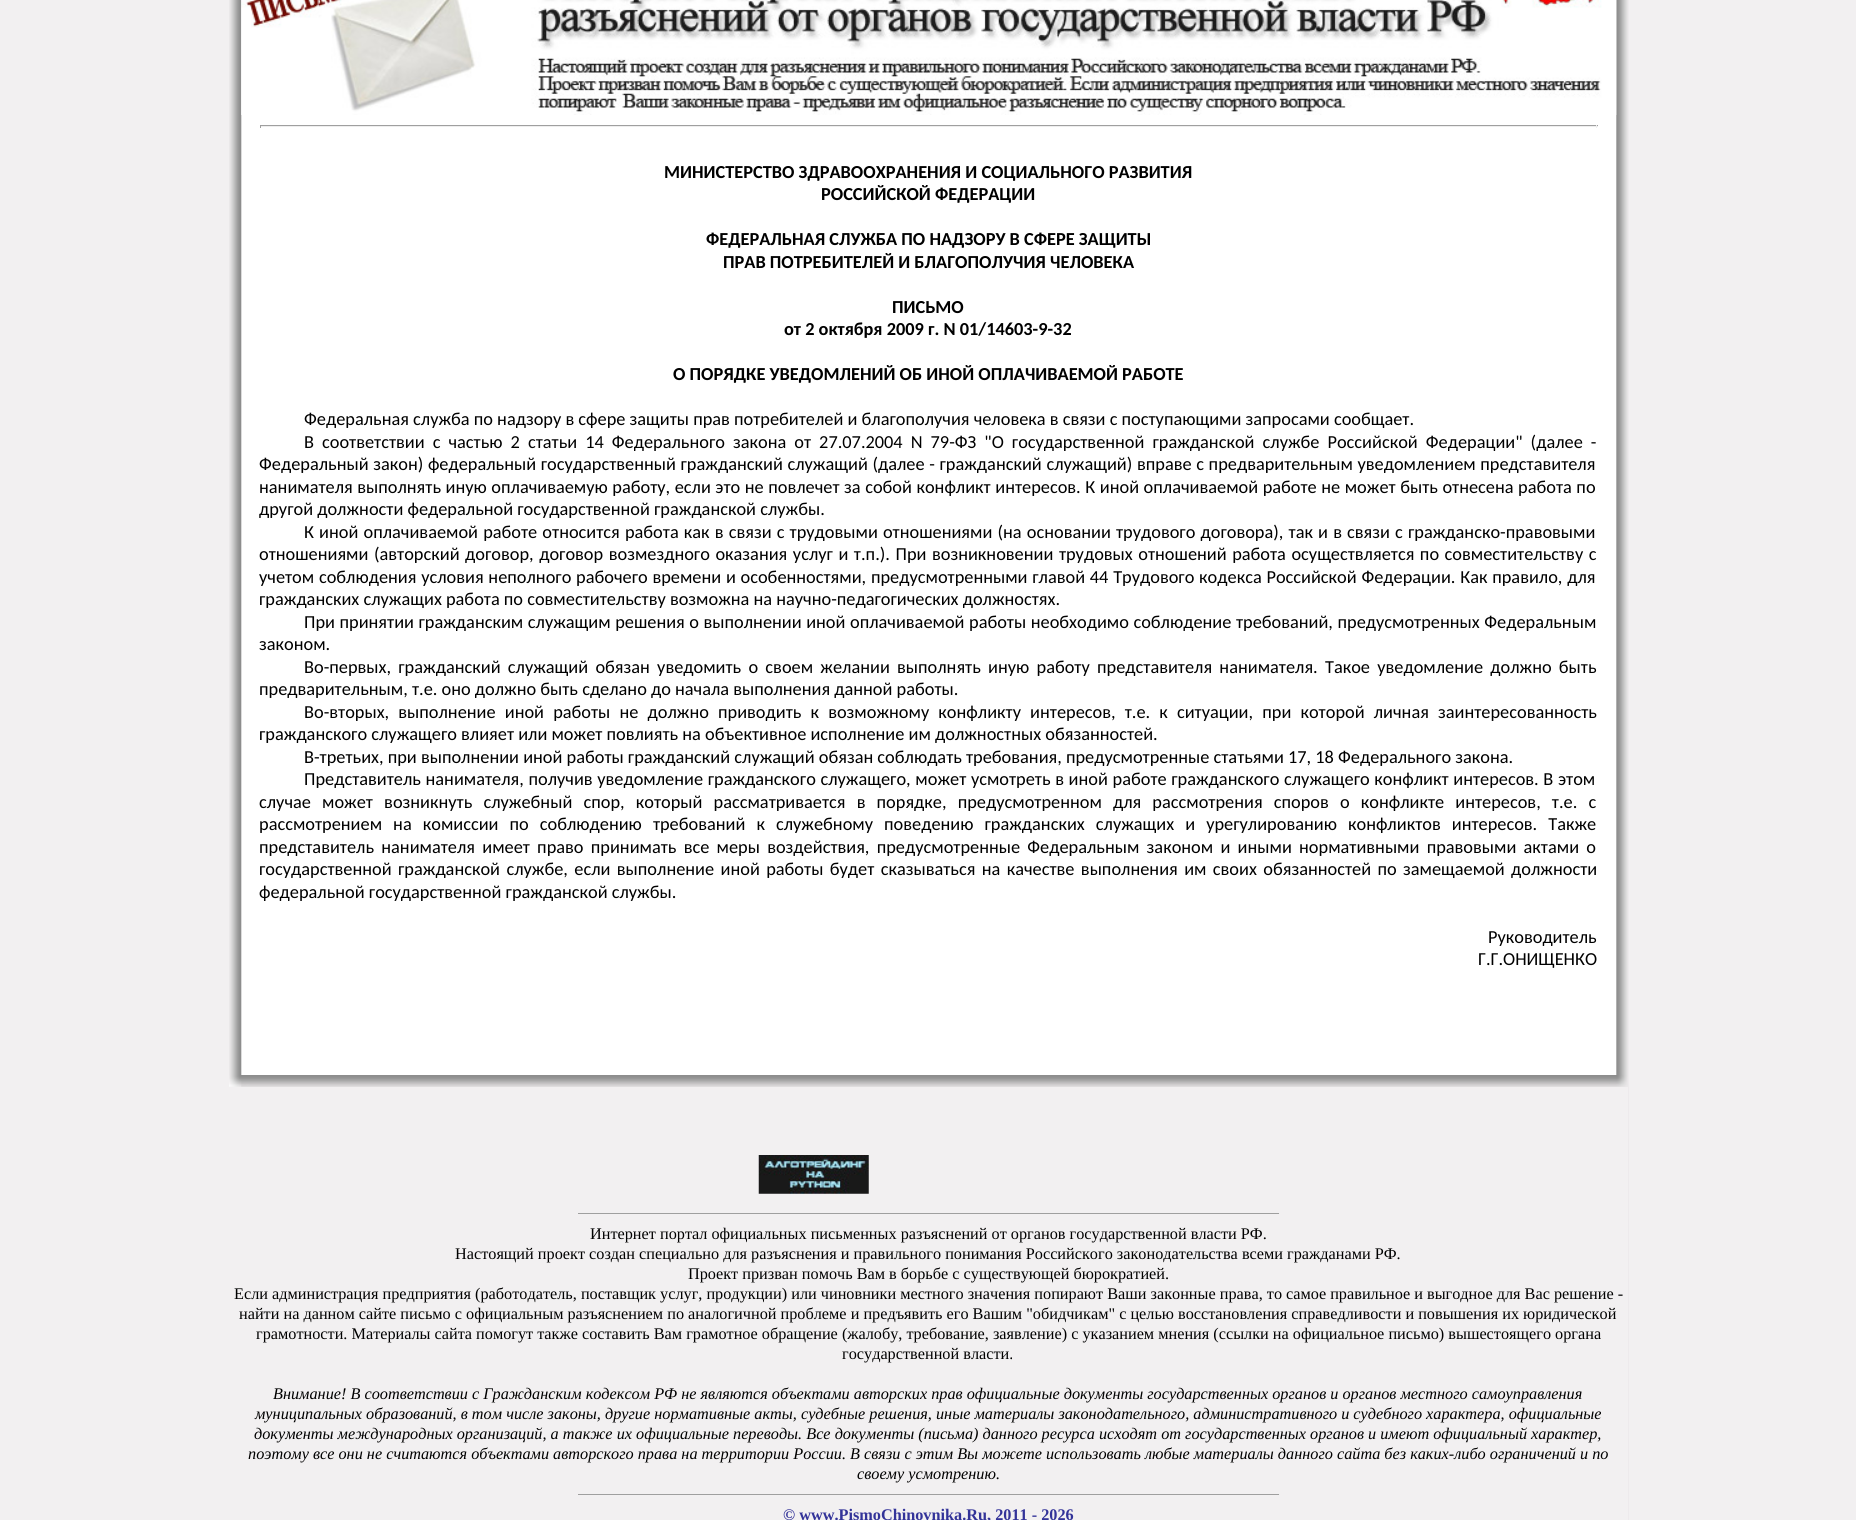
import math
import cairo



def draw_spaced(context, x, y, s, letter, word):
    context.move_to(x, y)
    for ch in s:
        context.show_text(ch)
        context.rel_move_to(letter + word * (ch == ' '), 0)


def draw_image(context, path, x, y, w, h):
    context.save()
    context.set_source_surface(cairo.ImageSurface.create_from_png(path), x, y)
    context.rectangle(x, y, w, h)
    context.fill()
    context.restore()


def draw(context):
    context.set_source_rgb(242 / 255, 240 / 255, 241 / 255)
    context.paint()
    draw_image(context, "images/1.png", 229, 0, 1400, 1520)
    draw_image(context, "images/2.png", 241, 0, 1376, 115)
    context.set_source_rgb(159 / 255, 159 / 255, 159 / 255)
    context.rectangle(260, 125, 1338, 1)
    context.fill()
    context.set_source_rgb(238 / 255, 238 / 255, 238 / 255)
    context.rectangle(1596, 125, 1, 3)
    context.fill()
    context.rectangle(260, 126, 1338, 1)
    context.fill()
    context.set_source_rgb(159 / 255, 159 / 255, 159 / 255)
    context.rectangle(260, 125, 1, 3)
    context.fill()
    draw_image(context, "images/3.png", 229, 1075, 1399, 12)
    context.set_source_rgb(242 / 255, 240 / 255, 241 / 255)
    context.rectangle(229, 1087, 1399, 433)
    context.fill()
    draw_image(context, "images/4.png", 758, 1155, 111, 39)
    context.set_source_rgb(159 / 255, 159 / 255, 159 / 255)
    context.rectangle(578, 1213, 702, 1)
    context.fill()
    context.set_source_rgb(238 / 255, 238 / 255, 238 / 255)
    context.rectangle(1279, 1213, 1, 1)
    context.fill()
    context.set_source_rgb(159 / 255, 159 / 255, 159 / 255)
    context.rectangle(578, 1494, 702, 1)
    context.fill()
    context.set_source_rgb(238 / 255, 238 / 255, 238 / 255)
    context.rectangle(1279, 1494, 1, 1)
    context.fill()
    context.select_font_face("Carlito", cairo.FontSlant.NORMAL, cairo.FontWeight.BOLD)
    context.set_font_size(18.33)
    context.set_source_rgb(0, 0, 0)
    context.move_to(664, 178)
    context.show_text("МИНИСТЕРСТВО ЗДРАВООХРАНЕНИЯ И СОЦИАЛЬНОГО РАЗВИТИЯ")
    context.move_to(821, 200)
    context.show_text("РОССИЙСКОЙ ФЕДЕРАЦИИ")
    context.move_to(706, 245)
    context.show_text("ФЕДЕРАЛЬНАЯ СЛУЖБА ПО НАДЗОРУ В СФЕРЕ ЗАЩИТЫ")
    context.move_to(723, 268)
    context.show_text("ПРАВ ПОТРЕБИТЕЛЕЙ И БЛАГОПОЛУЧИЯ ЧЕЛОВЕКА")
    context.move_to(892, 313)
    context.show_text("ПИСЬМО")
    context.move_to(784, 335)
    context.show_text("от 2 октября 2009 г. N 01/14603-9-32")
    context.move_to(673, 380)
    context.show_text("О ПОРЯДКЕ УВЕДОМЛЕНИЙ ОБ ИНОЙ ОПЛАЧИВАЕМОЙ РАБОТЕ")
    context.select_font_face("Carlito")
    context.move_to(304, 425)
    context.show_text("Федеральная служба по надзору в сфере защиты прав потребителей и благополучия человека в связи с поступающими запросами сообщает.")
    draw_spaced(context, 304, 448, "В соответствии с частью 2 статьи 14 Федерального закона от 27.07.2004 N 79-ФЗ \"О государственной гражданской службе Российской Федерации\" (далее -", 0, 3.9)
    draw_spaced(context, 259, 470, "Федеральный закон) федеральный государственный гражданский служащий (далее - гражданский служащий) вправе с предварительным уведомлением представителя", 0, 0.5)
    draw_spaced(context, 259, 493, "нанимателя выполнять иную оплачиваемую работу, если это не повлечет за собой конфликт интересов. К иной оплачиваемой работе не может быть отнесена работа по", 0, 0.4)
    context.move_to(259, 515)
    context.show_text("другой должности федеральной государственной гражданской службы.")
    draw_spaced(context, 304, 538, "К иной оплачиваемой работе относится работа как в связи с трудовыми отношениями (на основании трудового договора), так и в связи с гражданско-правовыми", 0, 1)
    draw_spaced(context, 259, 560, "отношениями (авторский договор, договор возмездного оказания услуг и т.п.). При возникновении трудовых отношений работа осуществляется по совместительству с", 0, 1.4)
    draw_spaced(context, 259, 583, "учетом соблюдения условия неполного рабочего времени и особенностями, предусмотренными главой 44 Трудового кодекса Российской Федерации. Как правило, для", 0, 0.6)
    context.move_to(259, 605)
    context.show_text("гражданских служащих работа по совместительству возможна на научно-педагогических должностях.")
    draw_spaced(context, 304, 628, "При принятии гражданским служащим решения о выполнении иной оплачиваемой работы необходимо соблюдение требований, предусмотренных Федеральным", 0, 0.4)
    context.move_to(259, 650)
    context.show_text("законом.")
    draw_spaced(context, 304, 673, "Во-первых, гражданский служащий обязан уведомить о своем желании выполнять иную работу представителя нанимателя. Такое уведомление должно быть", 0, 3.1)
    context.move_to(259, 695)
    context.show_text("предварительным, т.е. оно должно быть сделано до начала выполнения данной работы.")
    draw_spaced(context, 304, 718, "Во-вторых, выполнение иной работы не должно приводить к возможному конфликту интересов, т.е. к ситуации, при которой личная заинтересованность", 0, 5)
    context.move_to(259, 740)
    context.show_text("гражданского служащего влияет или может повлиять на объективное исполнение им должностных обязанностей.")
    context.move_to(304, 763)
    context.show_text("В-третьих, при выполнении иной работы гражданский служащий обязан соблюдать требования, предусмотренные статьями 17, 18 Федерального закона.")
    draw_spaced(context, 304, 785, "Представитель нанимателя, получив уведомление гражданского служащего, может усмотреть в иной работе гражданского служащего конфликт интересов. В этом", 0, 0.5)
    draw_spaced(context, 259, 808, "случае может возникнуть служебный спор, который рассматривается в порядке, предусмотренном для рассмотрения споров о конфликте интересов, т.е. с", 0, 7)
    draw_spaced(context, 259, 830, "рассмотрением на комиссии по соблюдению требований к служебному поведению гражданских служащих и урегулированию конфликтов интересов. Также", 0, 6.9)
    draw_spaced(context, 259, 853, "представитель нанимателя имеет право принимать все меры воздействия, предусмотренные Федеральным законом и иными нормативными правовыми актами о", 0, 3.1)
    draw_spaced(context, 259, 875, "государственной гражданской службе, если выполнение иной работы будет сказываться на качестве выполнения им своих обязанностей по замещаемой должности", 0, 2.25)
    context.move_to(259, 898)
    context.show_text("федеральной государственной гражданской службы.")
    context.move_to(1488, 943)
    context.show_text("Руководитель")
    context.move_to(1478, 965)
    context.show_text("Г.Г.ОНИЩЕНКО")
    context.select_font_face("Liberation Serif")
    context.set_font_size(16.25)
    context.move_to(590, 1239)
    context.show_text("Интернет портал официальных письменных разъяснений от органов государственной власти РФ.")
    context.move_to(455, 1259)
    context.show_text("Настоящий проект создан специально для разъяснения и правильного понимания Российского законодательства всеми гражданами РФ.")
    context.move_to(688, 1279)
    context.show_text("Проект призван помочь Вам в борьбе с существующей бюрократией.")
    context.move_to(234, 1299)
    context.show_text("Если администрация предприятия (работодатель, поставщик услуг, продукции) или чиновники местного значения попирают Ваши законные права, то самое правильное и выгодное для Вас решение -")
    context.move_to(239, 1319)
    context.show_text("найти на данном сайте письмо с официальным разъяснением по аналогичной проблеме и предъявить его Вашим \"обидчикам\" с целью восстановления справедливости и повышения их юридической")
    context.move_to(256, 1339)
    context.show_text("грамотности. Материалы сайта помогут также составить Вам грамотное обращение (жалобу, требование, заявление) с указанием мнения (ссылки на официальное письмо) вышестоящего органа")
    context.move_to(842, 1359)
    context.show_text("государственной власти.")
    context.select_font_face("Liberation Serif", cairo.FontSlant.ITALIC)
    context.move_to(273, 1399)
    context.show_text("Внимание! В соответствии с Гражданским кодексом РФ не являются объектами авторских прав официальные документы государственных органов и органов местного самоуправления")
    context.move_to(255, 1419)
    context.show_text("муниципальных образований, в том числе законы, другие нормативные акты, судебные решения, иные материалы законодательного, административного и судебного характера, официальные")
    context.move_to(254, 1439)
    context.show_text("документы международных организаций, а также их официальные переводы. Все документы (письма) данного ресурса исходят от государственных органов и имеют официальный характер,")
    context.move_to(248, 1459)
    context.show_text("поэтому все они не считаются объектами авторского права на территории России. В связи с этим Вы можете использовать любые материалы данного сайта без каких-либо ограничений и по")
    context.move_to(857, 1479)
    context.show_text("своему усмотрению.")
    context.select_font_face("Liberation Serif", cairo.FontSlant.NORMAL, cairo.FontWeight.BOLD)
    context.set_source_rgb(51 / 255, 51 / 255, 153 / 255)
    context.move_to(783, 1520)
    context.show_text("© www.PismoChinovnika.Ru, 2011 - 2026")


surface = cairo.ImageSurface(cairo.Format.RGB24, 1856, 1520)
context = cairo.Context(surface)
options = cairo.FontOptions()
options.set_hint_metrics(cairo.HintMetrics.OFF)
options.set_hint_style(cairo.HintStyle.NONE)
context.set_font_options(options)
context.set_miter_limit(4)
draw(context)
surface.write_to_png("out.png")
